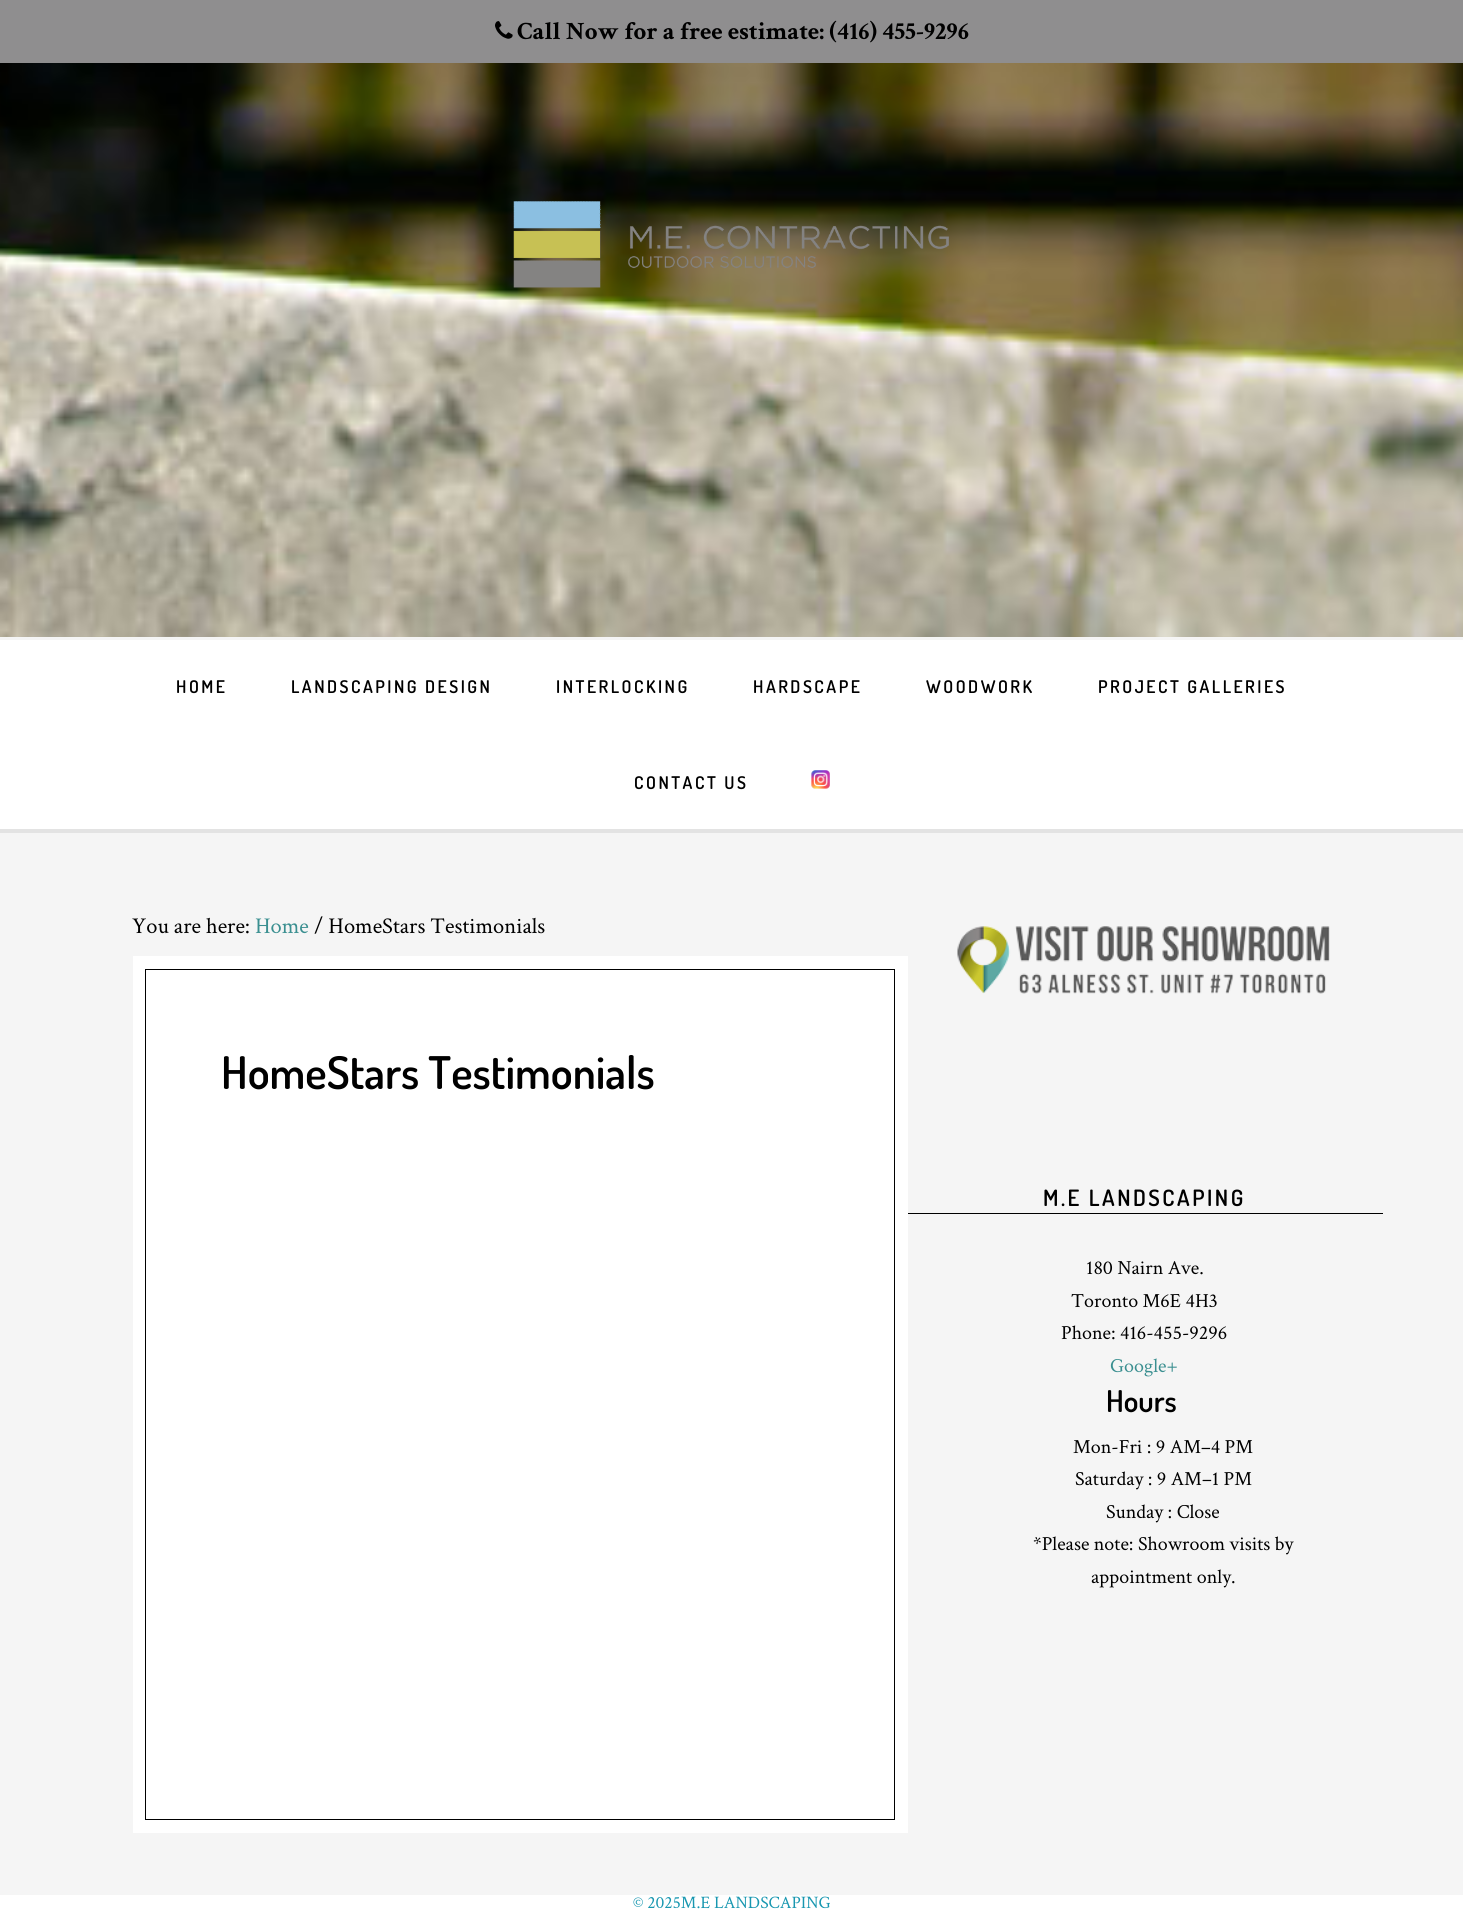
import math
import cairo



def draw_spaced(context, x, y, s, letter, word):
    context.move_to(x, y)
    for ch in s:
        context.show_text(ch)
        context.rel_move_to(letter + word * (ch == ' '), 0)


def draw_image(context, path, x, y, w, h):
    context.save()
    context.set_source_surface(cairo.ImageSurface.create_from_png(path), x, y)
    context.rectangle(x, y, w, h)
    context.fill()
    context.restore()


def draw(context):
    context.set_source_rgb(245 / 255, 245 / 255, 245 / 255)
    context.paint()
    context.set_source_rgb(143 / 255, 142 / 255, 143 / 255)
    context.rectangle(0, 0, 1463, 63)
    context.fill()
    draw_image(context, "images/1.png", 495, 21, 18, 18)
    draw_image(context, "images/2.png", 0, 63, 1463, 574)
    draw_image(context, "images/3.png", 513, 201, 436, 87)
    context.set_source_rgb(1, 1, 1)
    context.rectangle(0, 640, 1463, 189)
    context.fill()
    context.set_source_rgb(227 / 255, 227 / 255, 227 / 255)
    context.rectangle(0, 829, 1463, 4)
    context.fill()
    draw_image(context, "images/4.png", 811, 770, 19, 19)
    context.rectangle(139.5, 962.5, 762, 864)
    context.set_source_rgb(1, 1, 1)
    context.set_line_width(13)
    context.stroke()
    context.rectangle(145.5, 969.5, 749, 850)
    context.fill_preserve()
    context.set_source_rgb(0, 0, 0)
    context.set_line_width(1)
    context.stroke()
    draw_image(context, "images/5.png", 957, 926, 373, 68)
    context.rectangle(908, 1213, 475, 1)
    context.fill()
    context.set_source_rgb(1, 1, 1)
    context.rectangle(0, 1895, 1463, 18)
    context.fill()
    context.select_font_face("Crimson Text", cairo.FontSlant.NORMAL, cairo.FontWeight.BOLD)
    context.set_font_size(25)
    context.set_source_rgb(0, 0, 0)
    context.move_to(517, 39)
    context.show_text("Call Now for a free estimate: (416) 455-9296")
    context.select_font_face("Dosis SemiBold")
    context.set_font_size(17.5)
    draw_spaced(context, 176, 693, "HOME", 2.5, 0)
    draw_spaced(context, 291, 693, "LANDSCAPING DESIGN", 2.5, 0)
    draw_spaced(context, 556, 693, "INTERLOCKING", 2.5, 0)
    draw_spaced(context, 753, 693, "HARDSCAPE", 2.5, 0)
    draw_spaced(context, 926, 693, "WOODWORK", 2.5, 0)
    draw_spaced(context, 1098, 693, "PROJECT GALLERIES", 2.5, 0)
    draw_spaced(context, 634, 789, "CONTACT US", 2.5, 0)
    context.select_font_face("Crimson Text")
    context.set_font_size(22.5)
    context.move_to(132, 933)
    context.show_text("You are here:")
    context.set_source_rgb(58 / 255, 143 / 255, 144 / 255)
    context.move_to(255, 933)
    context.show_text("Home")
    context.set_source_rgb(0, 0, 0)
    context.move_to(314, 933)
    context.show_text("/ HomeStars Testimonials")
    context.select_font_face("Dosis SemiBold")
    context.set_font_size(45)
    context.move_to(221, 1089)
    context.show_text("HomeStars Testimonials")
    context.set_font_size(22.5)
    draw_spaced(context, 1043, 1206, "M.E LANDSCAPING", 2.5, 0)
    context.select_font_face("Crimson Text")
    context.set_font_size(20)
    context.move_to(1086, 1274)
    context.show_text("180 Nairn Ave.")
    context.move_to(1071, 1307)
    context.show_text("Toronto M6E 4H3")
    context.move_to(1061, 1339)
    context.show_text("Phone: 416-455-9296")
    context.set_source_rgb(58 / 255, 143 / 255, 144 / 255)
    context.move_to(1110, 1372)
    context.show_text("Google+")
    context.select_font_face("Dosis SemiBold")
    context.set_font_size(30)
    context.set_source_rgb(0, 0, 0)
    context.move_to(1106, 1412)
    context.show_text("Hours")
    context.select_font_face("Crimson Text")
    context.set_font_size(20)
    context.move_to(1073, 1453)
    context.show_text("Mon-Fri : 9 AM–4 PM")
    context.move_to(1075, 1485)
    context.show_text("Saturday : 9 AM–1 PM")
    context.move_to(1106, 1518)
    context.show_text("Sunday : Close")
    context.move_to(1033, 1550)
    context.show_text("*Please note: Showroom visits by")
    context.move_to(1091, 1583)
    context.show_text("appointment only.")
    context.set_font_size(17.5)
    context.set_source_rgb(24 / 255, 151 / 255, 176 / 255)
    context.move_to(633, 1908)
    context.show_text("© 2025M.E LANDSCAPING")


surface = cairo.ImageSurface(cairo.Format.RGB24, 1463, 1913)
context = cairo.Context(surface)
options = cairo.FontOptions()
options.set_hint_metrics(cairo.HintMetrics.OFF)
options.set_hint_style(cairo.HintStyle.NONE)
context.set_font_options(options)
context.set_miter_limit(4)
draw(context)
surface.write_to_png("out.png")
